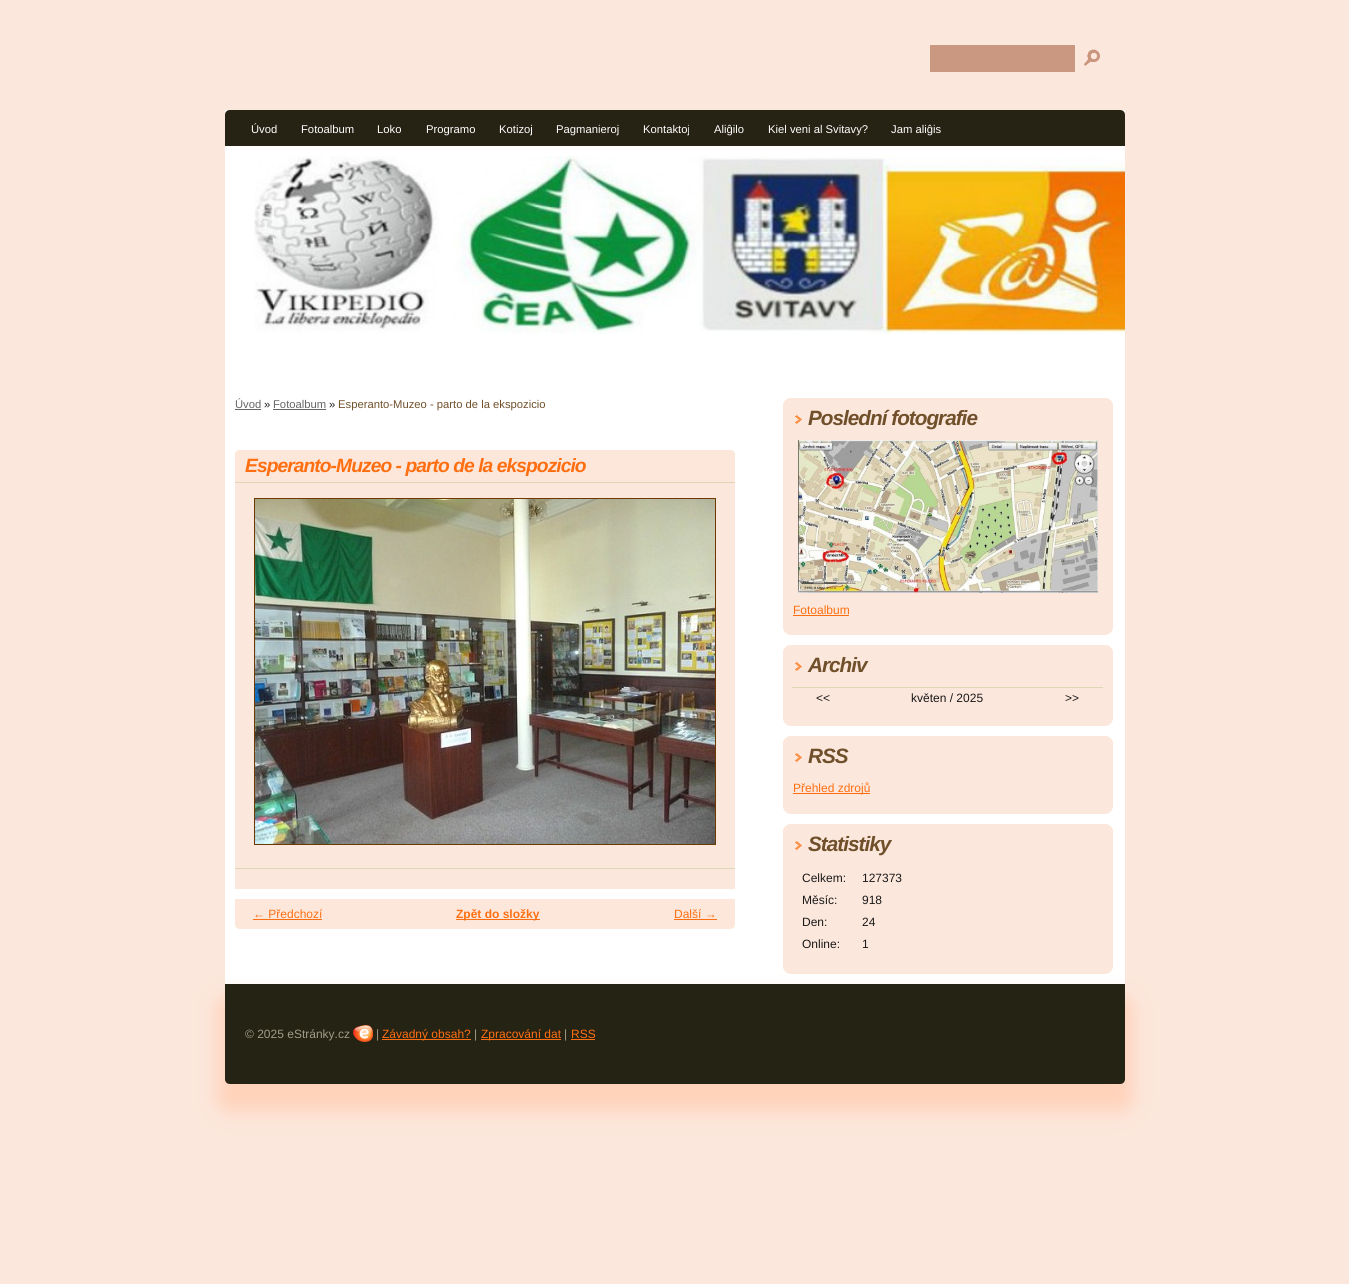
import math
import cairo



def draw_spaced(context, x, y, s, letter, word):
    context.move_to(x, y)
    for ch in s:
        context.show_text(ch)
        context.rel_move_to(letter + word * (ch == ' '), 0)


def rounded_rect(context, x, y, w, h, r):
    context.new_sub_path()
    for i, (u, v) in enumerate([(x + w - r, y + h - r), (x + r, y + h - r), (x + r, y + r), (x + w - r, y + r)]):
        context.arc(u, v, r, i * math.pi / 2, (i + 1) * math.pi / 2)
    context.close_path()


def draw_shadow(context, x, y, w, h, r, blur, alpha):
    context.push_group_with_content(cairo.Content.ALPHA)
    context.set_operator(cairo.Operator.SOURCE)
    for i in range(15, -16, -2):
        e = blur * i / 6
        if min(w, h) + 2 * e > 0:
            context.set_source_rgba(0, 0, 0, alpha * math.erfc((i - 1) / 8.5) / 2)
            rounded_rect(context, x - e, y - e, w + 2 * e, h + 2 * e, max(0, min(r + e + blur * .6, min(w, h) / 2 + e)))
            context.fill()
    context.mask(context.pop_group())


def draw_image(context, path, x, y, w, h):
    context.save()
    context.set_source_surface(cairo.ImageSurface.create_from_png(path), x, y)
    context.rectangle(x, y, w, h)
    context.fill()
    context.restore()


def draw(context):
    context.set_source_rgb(252 / 255, 231 / 255, 220 / 255)
    context.paint()
    context.set_source_rgb(1, 1, 1)
    context.rectangle(225, 110, 900, 874)
    context.fill()
    context.set_source_rgb(38 / 255, 35 / 255, 20 / 255)
    context.new_path()
    context.move_to(230, 110)
    context.line_to(1120, 110)
    context.curve_to(1123, 110, 1125, 112, 1125, 115)
    context.line_to(1125, 146)
    context.line_to(225, 146)
    context.line_to(225, 115)
    context.curve_to(225, 112, 227, 110, 230, 110)
    context.close_path()
    context.fill()
    draw_image(context, "images/1.png", 254, 156, 871, 178)
    context.set_source_rgb(102 / 255, 102 / 255, 102 / 255)
    context.rectangle(235, 409, 26, 1)
    context.fill()
    context.rectangle(273, 409, 53, 1)
    context.fill()
    context.set_source_rgb(252 / 255, 231 / 255, 220 / 255)
    context.new_path()
    context.move_to(240, 450)
    context.line_to(730, 450)
    context.curve_to(733, 450, 735, 452, 735, 455)
    context.line_to(735, 889)
    context.line_to(235, 889)
    context.line_to(235, 455)
    context.curve_to(235, 452, 237, 450, 240, 450)
    context.close_path()
    context.fill()
    context.set_source_rgb(252 / 255, 231 / 255, 218 / 255)
    context.new_path()
    context.move_to(240, 450)
    context.line_to(730, 450)
    context.curve_to(733, 450, 735, 452, 735, 455)
    context.line_to(735, 483)
    context.line_to(235, 483)
    context.line_to(235, 455)
    context.curve_to(235, 452, 237, 450, 240, 450)
    context.close_path()
    context.fill()
    context.set_source_rgb(222 / 255, 215 / 255, 182 / 255)
    context.rectangle(235, 482, 500, 1)
    context.fill()
    context.rectangle(235, 868, 500, 1)
    context.fill()
    context.rectangle(254.5, 498.5, 461, 346)
    context.set_source_rgb(108 / 255, 58 / 255, 0)
    context.set_line_width(1)
    context.stroke()
    draw_image(context, "images/2.png", 255, 499, 460, 345)
    context.set_source_rgb(252 / 255, 231 / 255, 218 / 255)
    context.new_path()
    context.move_to(235, 899)
    context.line_to(735, 899)
    context.line_to(735, 924)
    context.curve_to(735, 927, 733, 929, 730, 929)
    context.line_to(240, 929)
    context.curve_to(237, 929, 235, 927, 235, 924)
    context.close_path()
    context.fill()
    context.set_source_rgb(1, 111 / 255, 18 / 255)
    context.rectangle(253, 919, 69, 1)
    context.fill()
    context.rectangle(456, 919, 84, 1)
    context.fill()
    context.rectangle(674, 919, 43, 1)
    context.fill()
    context.set_source_rgb(202 / 255, 151 / 255, 128 / 255)
    context.rectangle(930, 45, 144, 26)
    context.fill()
    context.set_fill_rule(cairo.FillRule.EVEN_ODD)
    context.new_path()
    context.move_to(933, 45)
    context.line_to(930, 46)
    context.line_to(930, 72)
    context.line_to(1075, 72)
    context.line_to(1075, 45)
    context.close_path()
    context.move_to(931, 46)
    context.line_to(931, 71)
    context.line_to(1074, 71)
    context.line_to(1074, 46)
    context.close_path()
    context.fill()
    draw_image(context, "images/3.png", 1084, 49, 16, 18)
    context.set_source_rgb(252 / 255, 231 / 255, 220 / 255)
    rounded_rect(context, 783, 398, 330, 237, 8)
    context.fill()
    context.new_path()
    context.move_to(791, 398)
    context.line_to(1105, 398)
    context.curve_to(1109.5, 398, 1113, 401.5, 1113, 406)
    context.line_to(1113, 430)
    context.line_to(783, 430)
    context.line_to(783, 406)
    context.curve_to(783, 401.5, 786.5, 398, 791, 398)
    context.close_path()
    context.fill()
    draw_image(context, "images/4.png", 795, 415, 7, 9)
    draw_image(context, "images/5.png", 798, 440, 300, 153)
    context.set_source_rgb(1, 111 / 255, 18 / 255)
    context.rectangle(793, 615, 56, 1)
    context.fill()
    context.set_source_rgb(252 / 255, 231 / 255, 220 / 255)
    rounded_rect(context, 783, 645, 330, 81, 8)
    context.fill()
    context.new_path()
    context.move_to(791, 645)
    context.line_to(1105, 645)
    context.curve_to(1109.5, 645, 1113, 648.5, 1113, 653)
    context.line_to(1113, 677)
    context.line_to(783, 677)
    context.line_to(783, 653)
    context.curve_to(783, 648.5, 786.5, 645, 791, 645)
    context.close_path()
    context.fill()
    draw_image(context, "images/4.png", 795, 662, 7, 9)
    context.set_source_rgb(222 / 255, 215 / 255, 182 / 255)
    context.rectangle(792, 687, 311, 1)
    context.fill()
    context.set_source_rgb(252 / 255, 231 / 255, 220 / 255)
    rounded_rect(context, 783, 736, 330, 78, 8)
    context.fill()
    context.new_path()
    context.move_to(791, 736)
    context.line_to(1105, 736)
    context.curve_to(1109.5, 736, 1113, 739.5, 1113, 744)
    context.line_to(1113, 768)
    context.line_to(783, 768)
    context.line_to(783, 744)
    context.curve_to(783, 739.5, 786.5, 736, 791, 736)
    context.close_path()
    context.fill()
    draw_image(context, "images/4.png", 795, 753, 7, 9)
    context.set_source_rgb(1, 111 / 255, 18 / 255)
    context.rectangle(793, 793, 77, 1)
    context.fill()
    context.set_source_rgb(252 / 255, 231 / 255, 220 / 255)
    rounded_rect(context, 783, 824, 330, 150, 8)
    context.fill()
    context.new_path()
    context.move_to(791, 824)
    context.line_to(1105, 824)
    context.curve_to(1109.5, 824, 1113, 827.5, 1113, 832)
    context.line_to(1113, 856)
    context.line_to(783, 856)
    context.line_to(783, 832)
    context.curve_to(783, 827.5, 786.5, 824, 791, 824)
    context.close_path()
    context.fill()
    draw_image(context, "images/4.png", 795, 841, 7, 9)
    context.set_source_rgb(1, 210 / 255, 185 / 255)
    draw_shadow(context, 218, 997, 914, 114, 12, 10, 1)
    context.set_source_rgb(37 / 255, 35 / 255, 20 / 255)
    context.new_path()
    context.move_to(225, 984)
    context.line_to(1125, 984)
    context.line_to(1125, 1079)
    context.curve_to(1125, 1082, 1123, 1084, 1120, 1084)
    context.line_to(230, 1084)
    context.curve_to(227, 1084, 225, 1082, 225, 1079)
    context.close_path()
    context.fill()
    draw_image(context, "images/6.png", 353, 1025, 20, 17)
    context.set_source_rgb(1, 111 / 255, 18 / 255)
    context.rectangle(382, 1039, 89, 1)
    context.fill()
    context.rectangle(481, 1039, 80, 1)
    context.fill()
    context.rectangle(571, 1039, 24, 1)
    context.fill()
    context.select_font_face("Liberation Sans")
    context.set_font_size(11.25)
    context.set_source_rgb(1, 1, 1)
    context.move_to(251, 133)
    context.show_text("Úvod")
    context.move_to(301, 133)
    context.show_text("Fotoalbum")
    context.move_to(377, 133)
    context.show_text("Loko")
    context.move_to(426, 133)
    context.show_text("Programo")
    context.move_to(499, 133)
    context.show_text("Kotizoj")
    context.move_to(556, 133)
    context.show_text("Pagmanieroj")
    context.move_to(643, 133)
    context.show_text("Kontaktoj")
    context.move_to(714, 133)
    context.show_text("Aliĝilo")
    context.move_to(768, 133)
    context.show_text("Kiel veni al Svitavy?")
    context.move_to(891, 133)
    context.show_text("Jam aliĝis")
    context.set_source_rgb(102 / 255, 102 / 255, 102 / 255)
    context.move_to(235, 408)
    context.show_text("Úvod")
    context.set_source_rgb(25 / 255, 25 / 255, 25 / 255)
    context.move_to(264, 408)
    context.show_text("»")
    context.set_source_rgb(102 / 255, 102 / 255, 102 / 255)
    context.move_to(273, 408)
    context.show_text("Fotoalbum")
    context.set_source_rgb(25 / 255, 25 / 255, 25 / 255)
    context.move_to(329, 408)
    context.show_text("»")
    context.set_source_rgb(112 / 255, 80 / 255, 43 / 255)
    context.move_to(338, 408)
    context.show_text("Esperanto-Muzeo - parto de la ekspozicio")
    context.select_font_face("Liberation Sans", cairo.FontSlant.ITALIC, cairo.FontWeight.BOLD)
    context.set_font_size(19.25)
    context.set_source_rgb(1, 111 / 255, 18 / 255)
    draw_spaced(context, 245, 472, "Esperanto-Muzeo - parto de la ekspozicio", -0.95, 0)
    context.select_font_face("Liberation Sans")
    context.set_font_size(12)
    context.move_to(253, 918)
    context.show_text("← Předchozí")
    context.select_font_face("Liberation Sans", cairo.FontSlant.NORMAL, cairo.FontWeight.BOLD)
    context.move_to(456, 918)
    context.show_text("Zpět do složky")
    context.select_font_face("Liberation Sans")
    context.move_to(674, 918)
    context.show_text("Další →")
    context.select_font_face("Liberation Sans", cairo.FontSlant.ITALIC, cairo.FontWeight.BOLD)
    context.set_font_size(20.75)
    context.set_source_rgb(112 / 255, 80 / 255, 43 / 255)
    draw_spaced(context, 808, 425, "Poslední fotografie", -1, 0)
    context.select_font_face("Liberation Sans")
    context.set_font_size(12)
    context.set_source_rgb(1, 111 / 255, 18 / 255)
    context.move_to(793, 614)
    context.show_text("Fotoalbum")
    context.select_font_face("Liberation Sans", cairo.FontSlant.ITALIC, cairo.FontWeight.BOLD)
    context.set_font_size(20.75)
    context.set_source_rgb(112 / 255, 80 / 255, 43 / 255)
    draw_spaced(context, 808, 672, "Archiv", -1, 0)
    context.select_font_face("Liberation Sans")
    context.set_font_size(12)
    context.set_source_rgb(25 / 255, 25 / 255, 25 / 255)
    context.move_to(816, 702)
    context.show_text("<<")
    context.move_to(911, 702)
    context.show_text("květen / 2025")
    context.move_to(1065, 702)
    context.show_text(">>")
    context.select_font_face("Liberation Sans", cairo.FontSlant.ITALIC, cairo.FontWeight.BOLD)
    context.set_font_size(20.75)
    context.set_source_rgb(112 / 255, 80 / 255, 43 / 255)
    draw_spaced(context, 808, 763, "RSS", -1, 0)
    context.select_font_face("Liberation Sans")
    context.set_font_size(12)
    context.set_source_rgb(1, 111 / 255, 18 / 255)
    context.move_to(793, 792)
    context.show_text("Přehled zdrojů")
    context.select_font_face("Liberation Sans", cairo.FontSlant.ITALIC, cairo.FontWeight.BOLD)
    context.set_font_size(20.75)
    context.set_source_rgb(112 / 255, 80 / 255, 43 / 255)
    draw_spaced(context, 808, 851, "Statistiky", -1, 0)
    context.select_font_face("Liberation Sans")
    context.set_font_size(12)
    context.set_source_rgb(25 / 255, 25 / 255, 25 / 255)
    context.move_to(802, 882)
    context.show_text("Celkem:")
    context.move_to(862, 882)
    context.show_text("127373")
    context.move_to(802, 904)
    context.show_text("Měsíc:")
    context.move_to(862, 904)
    context.show_text("918")
    context.move_to(802, 926)
    context.show_text("Den:")
    context.move_to(862, 926)
    context.show_text("24")
    context.move_to(802, 948)
    context.show_text("Online:")
    context.move_to(862, 948)
    context.show_text("1")
    context.set_source_rgb(160 / 255, 156 / 255, 135 / 255)
    context.move_to(245, 1038)
    context.show_text("© 2025 eStránky.cz")
    context.move_to(376, 1038)
    context.show_text("|")
    context.set_source_rgb(1, 111 / 255, 18 / 255)
    context.move_to(382, 1038)
    context.show_text("Závadný obsah?")
    context.set_source_rgb(160 / 255, 156 / 255, 135 / 255)
    context.move_to(474, 1038)
    context.show_text("|")
    context.set_source_rgb(1, 111 / 255, 18 / 255)
    context.move_to(481, 1038)
    context.show_text("Zpracování dat")
    context.set_source_rgb(160 / 255, 156 / 255, 135 / 255)
    context.move_to(564, 1038)
    context.show_text("|")
    context.set_source_rgb(1, 111 / 255, 18 / 255)
    context.move_to(571, 1038)
    context.show_text("RSS")


surface = cairo.ImageSurface(cairo.Format.RGB24, 1349, 1284)
context = cairo.Context(surface)
options = cairo.FontOptions()
options.set_hint_metrics(cairo.HintMetrics.OFF)
options.set_hint_style(cairo.HintStyle.NONE)
context.set_font_options(options)
context.set_miter_limit(4)
draw(context)
surface.write_to_png("out.png")
